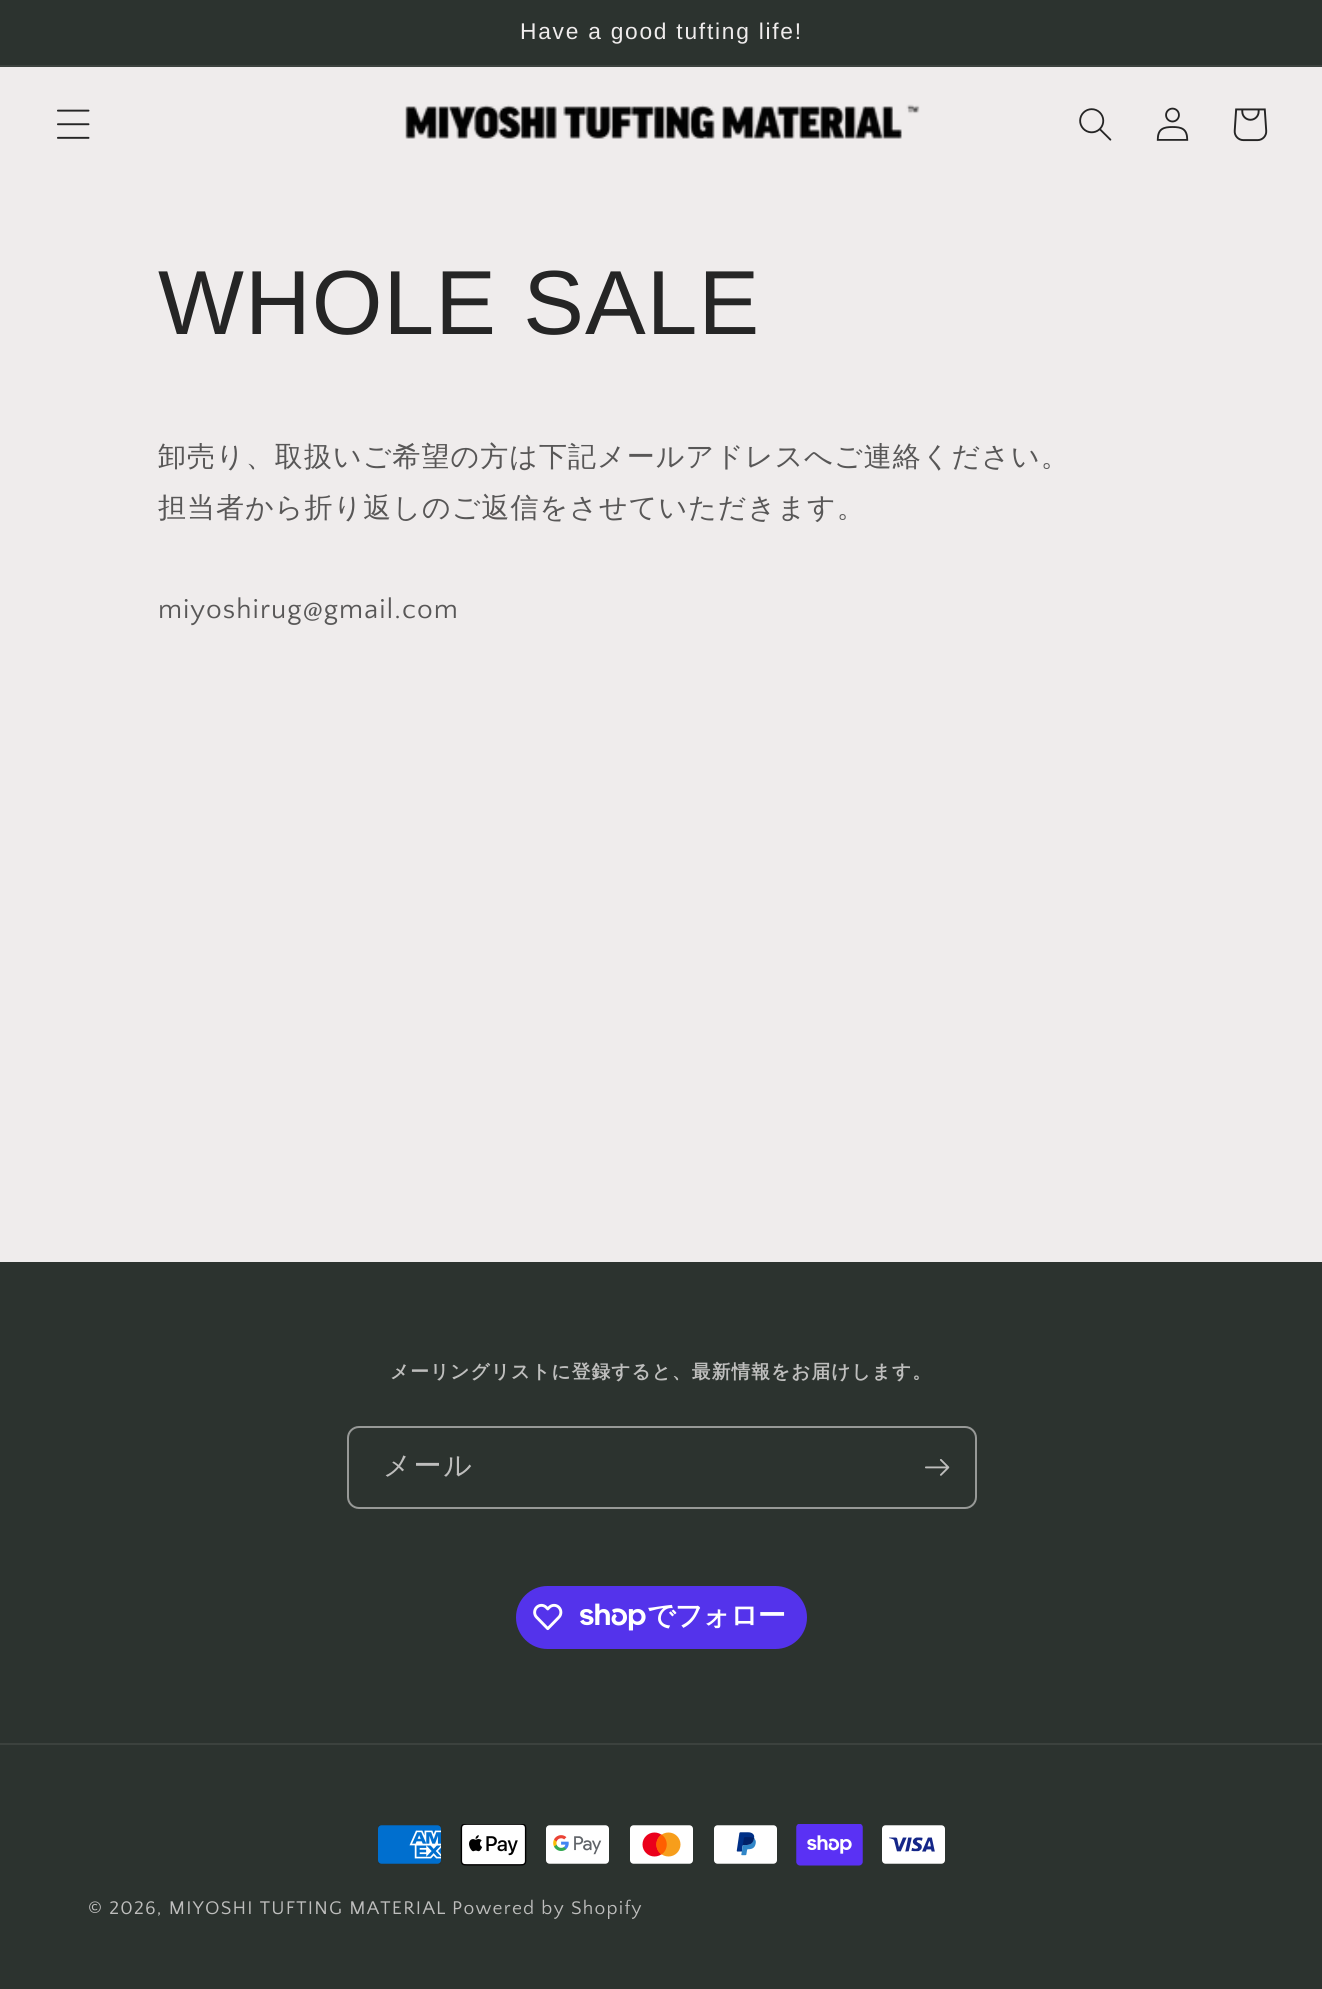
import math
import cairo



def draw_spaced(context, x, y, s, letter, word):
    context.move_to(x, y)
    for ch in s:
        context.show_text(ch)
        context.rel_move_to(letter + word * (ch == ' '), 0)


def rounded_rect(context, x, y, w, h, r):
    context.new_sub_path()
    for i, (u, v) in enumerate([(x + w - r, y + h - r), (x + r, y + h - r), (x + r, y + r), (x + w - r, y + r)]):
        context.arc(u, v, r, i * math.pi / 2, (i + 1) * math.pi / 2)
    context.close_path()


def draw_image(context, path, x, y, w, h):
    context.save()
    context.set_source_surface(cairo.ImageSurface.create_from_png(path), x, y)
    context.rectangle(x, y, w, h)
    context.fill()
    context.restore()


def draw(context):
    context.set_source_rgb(239 / 255, 236 / 255, 236 / 255)
    context.paint()
    context.set_source_rgb(44 / 255, 51 / 255, 47 / 255)
    context.rectangle(0, 0, 1322, 65)
    context.fill()
    context.set_source_rgb(60 / 255, 66 / 255, 62 / 255)
    context.rectangle(0, 65, 1322, 2)
    context.fill()
    draw_image(context, "images/1.png", 57, 109, 33, 30)
    draw_image(context, "images/2.png", 405, 104, 515, 35)
    draw_image(context, "images/3.png", 1079, 108, 33, 33)
    draw_image(context, "images/4.png", 1156, 107, 33, 34)
    draw_image(context, "images/5.png", 1233, 108, 35, 34)
    context.set_source_rgb(44 / 255, 51 / 255, 47 / 255)
    context.rectangle(0, 1262, 1322, 727)
    context.fill()
    rounded_rect(context, 348, 1427, 628, 81, 11)
    context.set_source_rgb(151 / 255, 153 / 255, 151 / 255)
    context.stroke()
    draw_image(context, "images/6.png", 925, 1459, 25, 17)
    context.set_source_rgb(84 / 255, 51 / 255, 235 / 255)
    rounded_rect(context, 516, 1586, 291, 63, 31.5)
    context.fill()
    draw_image(context, "images/7.png", 533, 1603, 30, 28)
    draw_image(context, "images/8.png", 580, 1603, 66, 28)
    context.set_source_rgb(60 / 255, 66 / 255, 62 / 255)
    context.rectangle(0, 1743, 1322, 2)
    context.fill()
    draw_image(context, "images/9.png", 378, 1825, 63, 39)
    draw_image(context, "images/10.png", 460, 1824, 67, 42)
    draw_image(context, "images/11.png", 546, 1825, 63, 39)
    draw_image(context, "images/12.png", 630, 1825, 63, 39)
    draw_image(context, "images/13.png", 714, 1825, 63, 39)
    draw_image(context, "images/14.png", 796, 1824, 67, 42)
    draw_image(context, "images/15.png", 882, 1825, 63, 39)
    context.select_font_face("Liberation Sans")
    context.set_font_size(22.75)
    context.set_source_rgb(239 / 255, 236 / 255, 236 / 255)
    draw_spaced(context, 520, 39, "Have a good tufting life!", 1.75, 0)
    context.set_font_size(91)
    context.set_source_rgb(37 / 255, 37 / 255, 37 / 255)
    draw_spaced(context, 158, 334, "WHOLE SALE", 1.05, 0)
    context.select_font_face("WenQuanYi Zen Hei Medium")
    context.set_font_size(28)
    context.set_source_rgb(88 / 255, 87 / 255, 87 / 255)
    draw_spaced(context, 158, 466, "卸売り、取扱いご希望の方は下記メールアドレスへご連絡ください。", 1.05, 0)
    draw_spaced(context, 158, 517, "担当者から折り返しのご返信をさせていただきます。", 1.05, 0)
    context.select_font_face("Quattrocento Sans")
    draw_spaced(context, 158, 618, "miyoshirug@gmail.com", 1.05, 0)
    context.select_font_face("WenQuanYi Zen Hei", cairo.FontSlant.NORMAL, cairo.FontWeight.BOLD)
    context.set_font_size(18.75)
    context.set_source_rgb(190 / 255, 190 / 255, 189 / 255)
    draw_spaced(context, 390, 1378, "メーリングリストに登録すると、最新情報をお届けします。", 1.05, 0)
    context.select_font_face("WenQuanYi Zen Hei Medium")
    context.set_font_size(28)
    draw_spaced(context, 383, 1475, "メール", 1.75, 0)
    context.select_font_face("WenQuanYi Zen Hei", cairo.FontSlant.NORMAL, cairo.FontWeight.BOLD)
    context.set_source_rgb(1, 1, 1)
    draw_spaced(context, 647, 1625, "でフォロー", -1, 0)
    context.select_font_face("Quattrocento Sans")
    context.set_font_size(19.25)
    context.set_source_rgb(190 / 255, 190 / 255, 189 / 255)
    draw_spaced(context, 88, 1914, "© 2026, MIYOSHI TUFTING MATERIAL", 1.25, 0)
    draw_spaced(context, 452, 1914, "Powered by Shopify", 1.25, 0)


surface = cairo.ImageSurface(cairo.Format.RGB24, 1322, 1989)
context = cairo.Context(surface)
options = cairo.FontOptions()
options.set_hint_metrics(cairo.HintMetrics.OFF)
options.set_hint_style(cairo.HintStyle.NONE)
context.set_font_options(options)
context.set_miter_limit(4)
draw(context)
surface.write_to_png("out.png")
